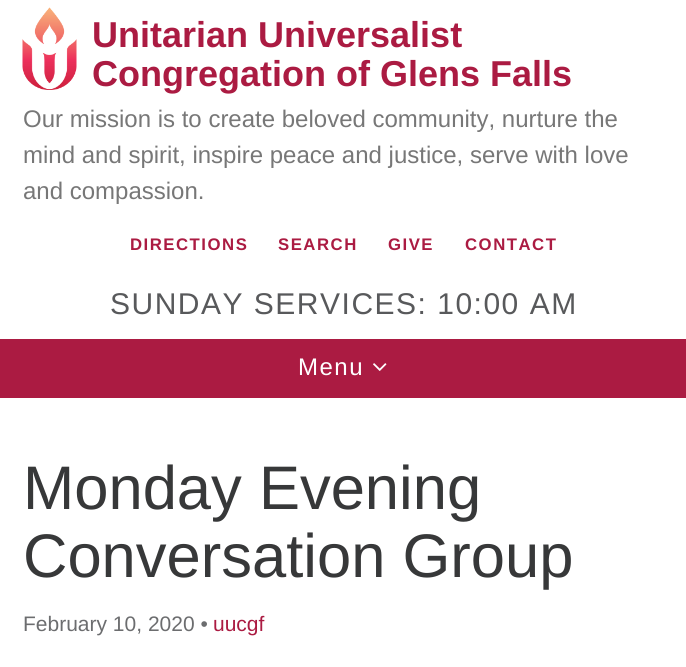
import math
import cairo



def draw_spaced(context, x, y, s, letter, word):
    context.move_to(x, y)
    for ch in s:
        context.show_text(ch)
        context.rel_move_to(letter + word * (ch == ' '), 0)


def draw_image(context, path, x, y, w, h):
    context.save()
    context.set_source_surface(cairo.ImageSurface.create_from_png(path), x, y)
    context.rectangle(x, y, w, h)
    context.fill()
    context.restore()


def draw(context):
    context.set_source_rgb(1, 1, 1)
    context.paint()
    draw_image(context, "images/1.png", 22, 7, 55, 83)
    context.set_source_rgb(171 / 255, 27 / 255, 66 / 255)
    context.rectangle(0, 339, 686, 59)
    context.fill()
    draw_image(context, "images/2.png", 373, 363, 14, 8)
    context.select_font_face("Liberation Sans", cairo.FontSlant.NORMAL, cairo.FontWeight.BOLD)
    context.set_font_size(36)
    context.move_to(92, 47)
    context.show_text("Unitarian Universalist")
    context.move_to(92, 86)
    context.show_text("Congregation of Glens Falls")
    context.select_font_face("Liberation Sans")
    context.set_font_size(24)
    context.set_source_rgb(119 / 255, 119 / 255, 119 / 255)
    context.move_to(23, 127)
    context.show_text("Our mission is to create beloved community, nurture the")
    context.move_to(23, 163)
    context.show_text("mind and spirit, inspire peace and justice, serve with love")
    context.move_to(23, 199)
    context.show_text("and compassion.")
    context.select_font_face("Liberation Sans", cairo.FontSlant.NORMAL, cairo.FontWeight.BOLD)
    context.set_font_size(16.75)
    context.set_source_rgb(171 / 255, 27 / 255, 66 / 255)
    draw_spaced(context, 130, 250, "DIRECTIONS", 1.5, 0)
    draw_spaced(context, 278, 250, "SEARCH", 1.5, 0)
    draw_spaced(context, 388, 250, "GIVE", 1.5, 0)
    draw_spaced(context, 465, 250, "CONTACT", 1.5, 0)
    context.select_font_face("Liberation Sans")
    context.set_font_size(30)
    context.set_source_rgb(88 / 255, 89 / 255, 91 / 255)
    draw_spaced(context, 110, 314, "SUNDAY SERVICES: 10:00 AM", 1.5, 0)
    context.set_font_size(24)
    context.set_source_rgb(1, 1, 1)
    draw_spaced(context, 298, 375, "Menu", 1.5, 0)
    context.set_font_size(61.5)
    context.set_source_rgb(55 / 255, 56 / 255, 57 / 255)
    context.move_to(23, 509)
    context.show_text("Monday Evening")
    context.move_to(23, 577)
    context.show_text("Conversation Group")
    context.set_font_size(21)
    context.set_source_rgb(108 / 255, 109 / 255, 111 / 255)
    context.move_to(23, 631)
    context.show_text("February 10, 2020 •")
    context.set_source_rgb(171 / 255, 27 / 255, 66 / 255)
    context.move_to(213, 631)
    context.show_text("uucgf")


surface = cairo.ImageSurface(cairo.Format.RGB24, 686, 667)
context = cairo.Context(surface)
options = cairo.FontOptions()
options.set_hint_metrics(cairo.HintMetrics.OFF)
options.set_hint_style(cairo.HintStyle.NONE)
context.set_font_options(options)
context.set_miter_limit(4)
draw(context)
surface.write_to_png("out.png")
